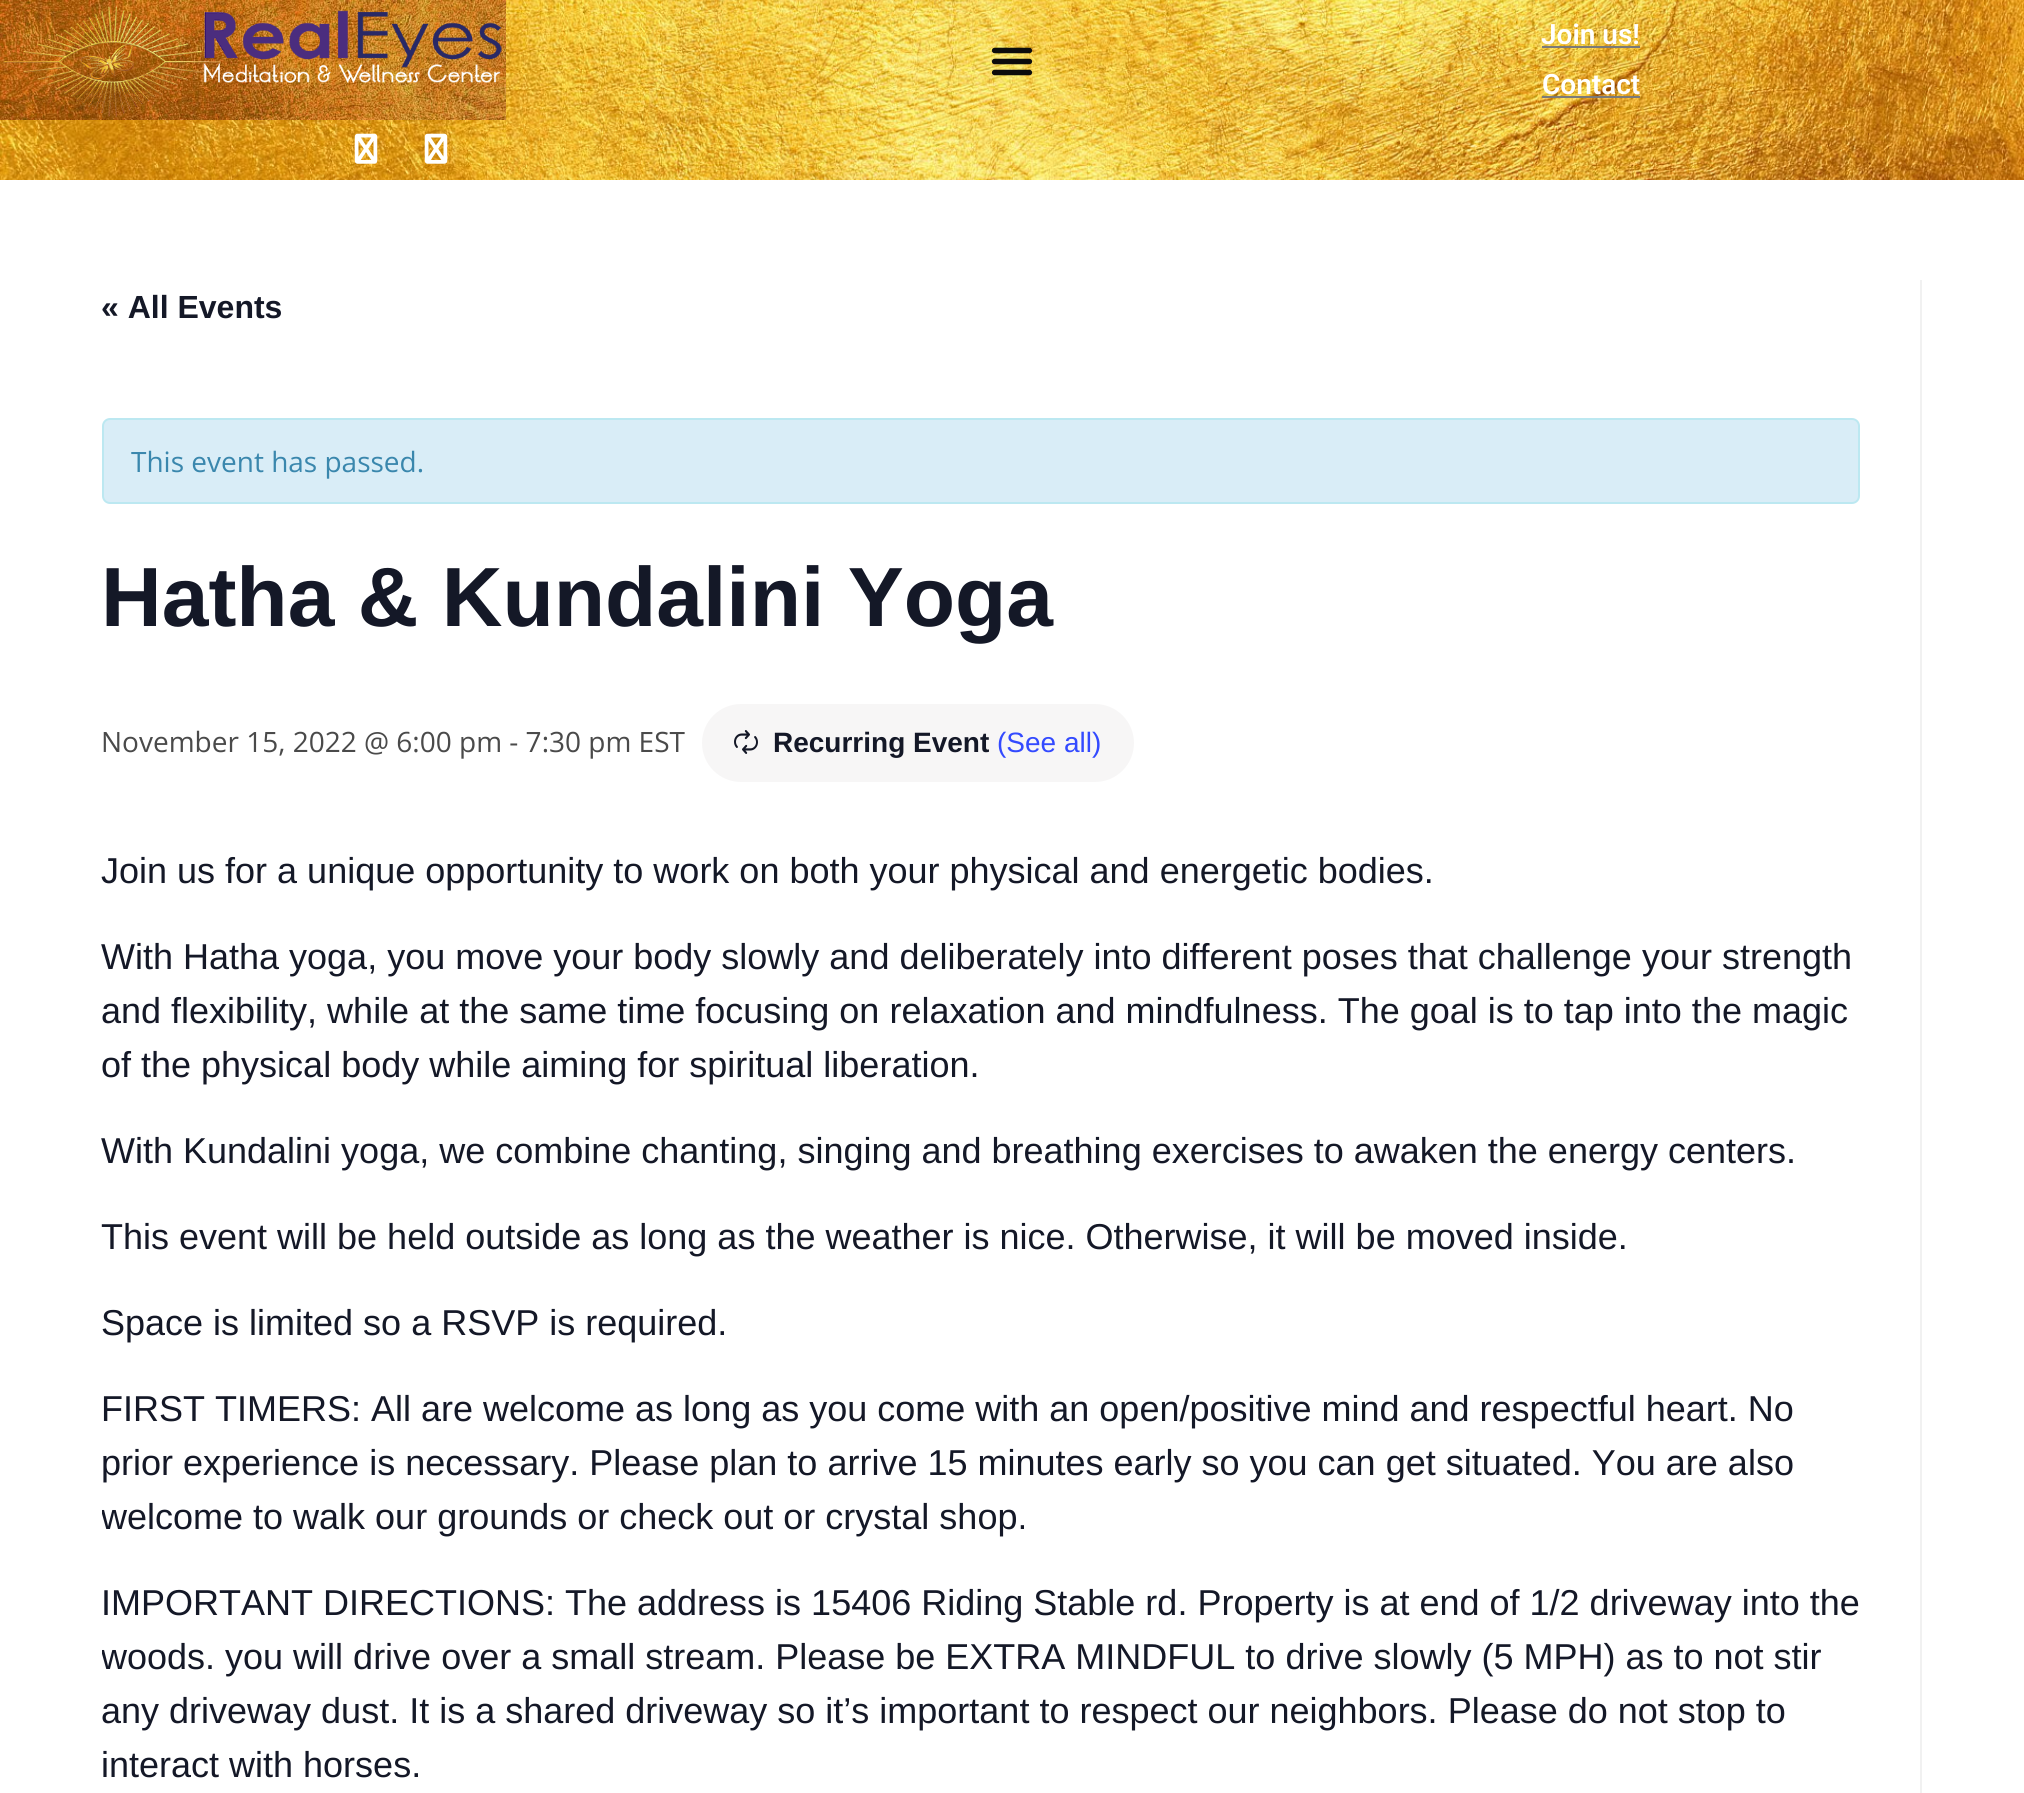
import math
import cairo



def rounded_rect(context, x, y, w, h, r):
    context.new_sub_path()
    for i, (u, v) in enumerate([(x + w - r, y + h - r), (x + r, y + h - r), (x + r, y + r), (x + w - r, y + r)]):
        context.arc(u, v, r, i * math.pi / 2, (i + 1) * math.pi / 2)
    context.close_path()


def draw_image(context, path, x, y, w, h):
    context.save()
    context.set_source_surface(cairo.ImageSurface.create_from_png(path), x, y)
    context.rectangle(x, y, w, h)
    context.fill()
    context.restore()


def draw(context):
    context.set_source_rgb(1, 1, 1)
    context.paint()
    draw_image(context, "images/1.png", 0, 0, 2024, 180)
    draw_image(context, "images/2.png", 0, 0, 506, 120)
    draw_image(context, "images/3.png", 3, 6, 499, 111)
    draw_image(context, "images/4.png", 991, 47, 42, 29)
    context.set_source_rgb(122 / 255, 122 / 255, 122 / 255)
    context.rectangle(1542, 46, 98, 2)
    context.fill()
    context.rectangle(1542, 96, 98, 2)
    context.fill()
    draw_image(context, "images/5.png", 354, 133, 24, 31)
    draw_image(context, "images/6.png", 424, 133, 24, 31)
    context.set_source_rgb(241 / 255, 241 / 255, 241 / 255)
    context.rectangle(1920, 280, 2, 1513)
    context.fill()
    context.set_source_rgb(217 / 255, 237 / 255, 247 / 255)
    rounded_rect(context, 103, 419, 1756, 84, 7)
    context.fill_preserve()
    context.set_source_rgb(188 / 255, 232 / 255, 241 / 255)
    context.stroke()
    context.set_source_rgb(247 / 255, 246 / 255, 246 / 255)
    rounded_rect(context, 702, 704, 432, 78, 39)
    context.fill()
    draw_image(context, "images/7.png", 734, 730, 24, 24)
    context.select_font_face("Roboto SemiBold")
    context.set_font_size(28)
    context.set_source_rgb(1, 1, 1)
    context.move_to(1541, 44)
    context.show_text("Join us!")
    context.move_to(1542, 94)
    context.show_text("Contact")
    context.select_font_face("Liberation Sans", cairo.FontSlant.NORMAL, cairo.FontWeight.BOLD)
    context.set_font_size(32)
    context.set_source_rgb(20 / 255, 24 / 255, 39 / 255)
    context.move_to(101, 318)
    context.show_text("« All Events")
    context.select_font_face("Open Sans")
    context.set_font_size(28)
    context.set_source_rgb(58 / 255, 135 / 255, 173 / 255)
    context.move_to(131, 472)
    context.show_text("This event has passed.")
    context.select_font_face("Liberation Sans", cairo.FontSlant.NORMAL, cairo.FontWeight.BOLD)
    context.set_font_size(84)
    context.set_source_rgb(20 / 255, 24 / 255, 39 / 255)
    context.move_to(101, 626)
    context.show_text("Hatha & Kundalini Yoga")
    context.select_font_face("Open Sans")
    context.set_font_size(28)
    context.set_source_rgb(74 / 255, 74 / 255, 74 / 255)
    context.move_to(101, 752)
    context.show_text("November 15, 2022 @ 6:00 pm - 7:30 pm EST")
    context.select_font_face("Liberation Sans", cairo.FontSlant.NORMAL, cairo.FontWeight.BOLD)
    context.set_source_rgb(20 / 255, 24 / 255, 39 / 255)
    context.move_to(773, 752)
    context.show_text("Recurring Event")
    context.select_font_face("Liberation Sans")
    context.set_source_rgb(51 / 255, 74 / 255, 1)
    context.move_to(997, 752)
    context.show_text("(See all)")
    context.set_font_size(36)
    context.set_source_rgb(20 / 255, 24 / 255, 39 / 255)
    context.move_to(101, 883)
    context.show_text("Join us for a unique opportunity to work on both your physical and energetic bodies.")
    context.move_to(101, 969)
    context.show_text("With Hatha yoga, you move your body slowly and deliberately into different poses that challenge your strength")
    context.move_to(101, 1023)
    context.show_text("and flexibility, while at the same time focusing on relaxation and mindfulness. The goal is to tap into the magic")
    context.move_to(101, 1077)
    context.show_text("of the physical body while aiming for spiritual liberation.")
    context.move_to(101, 1163)
    context.show_text("With Kundalini yoga, we combine chanting, singing and breathing exercises to awaken the energy centers.")
    context.move_to(101, 1249)
    context.show_text("This event will be held outside as long as the weather is nice. Otherwise, it will be moved inside.")
    context.move_to(101, 1335)
    context.show_text("Space is limited so a RSVP is required.")
    context.move_to(101, 1421)
    context.show_text("FIRST TIMERS: All are welcome as long as you come with an open/positive mind and respectful heart. No")
    context.move_to(101, 1475)
    context.show_text("prior experience is necessary. Please plan to arrive 15 minutes early so you can get situated. You are also")
    context.save()
    context.rectangle(102, 846, 1758, 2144)
    context.clip()
    context.move_to(101, 1529)
    context.show_text("welcome to walk our grounds or check out or crystal shop.")
    context.restore()
    context.move_to(101, 1615)
    context.show_text("IMPORTANT DIRECTIONS: The address is 15406 Riding Stable rd. Property is at end of 1/2 driveway into the")
    context.save()
    context.rectangle(102, 846, 1758, 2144)
    context.clip()
    context.move_to(101, 1669)
    context.show_text("woods. you will drive over a small stream. Please be EXTRA MINDFUL to drive slowly (5 MPH) as to not stir")
    context.restore()
    context.move_to(101, 1723)
    context.show_text("any driveway dust. It is a shared driveway so it’s important to respect our neighbors. Please do not stop to")
    context.move_to(101, 1777)
    context.show_text("interact with horses.")


surface = cairo.ImageSurface(cairo.Format.RGB24, 2024, 1793)
context = cairo.Context(surface)
options = cairo.FontOptions()
options.set_hint_metrics(cairo.HintMetrics.OFF)
options.set_hint_style(cairo.HintStyle.NONE)
context.set_font_options(options)
context.set_miter_limit(4)
draw(context)
surface.write_to_png("out.png")
